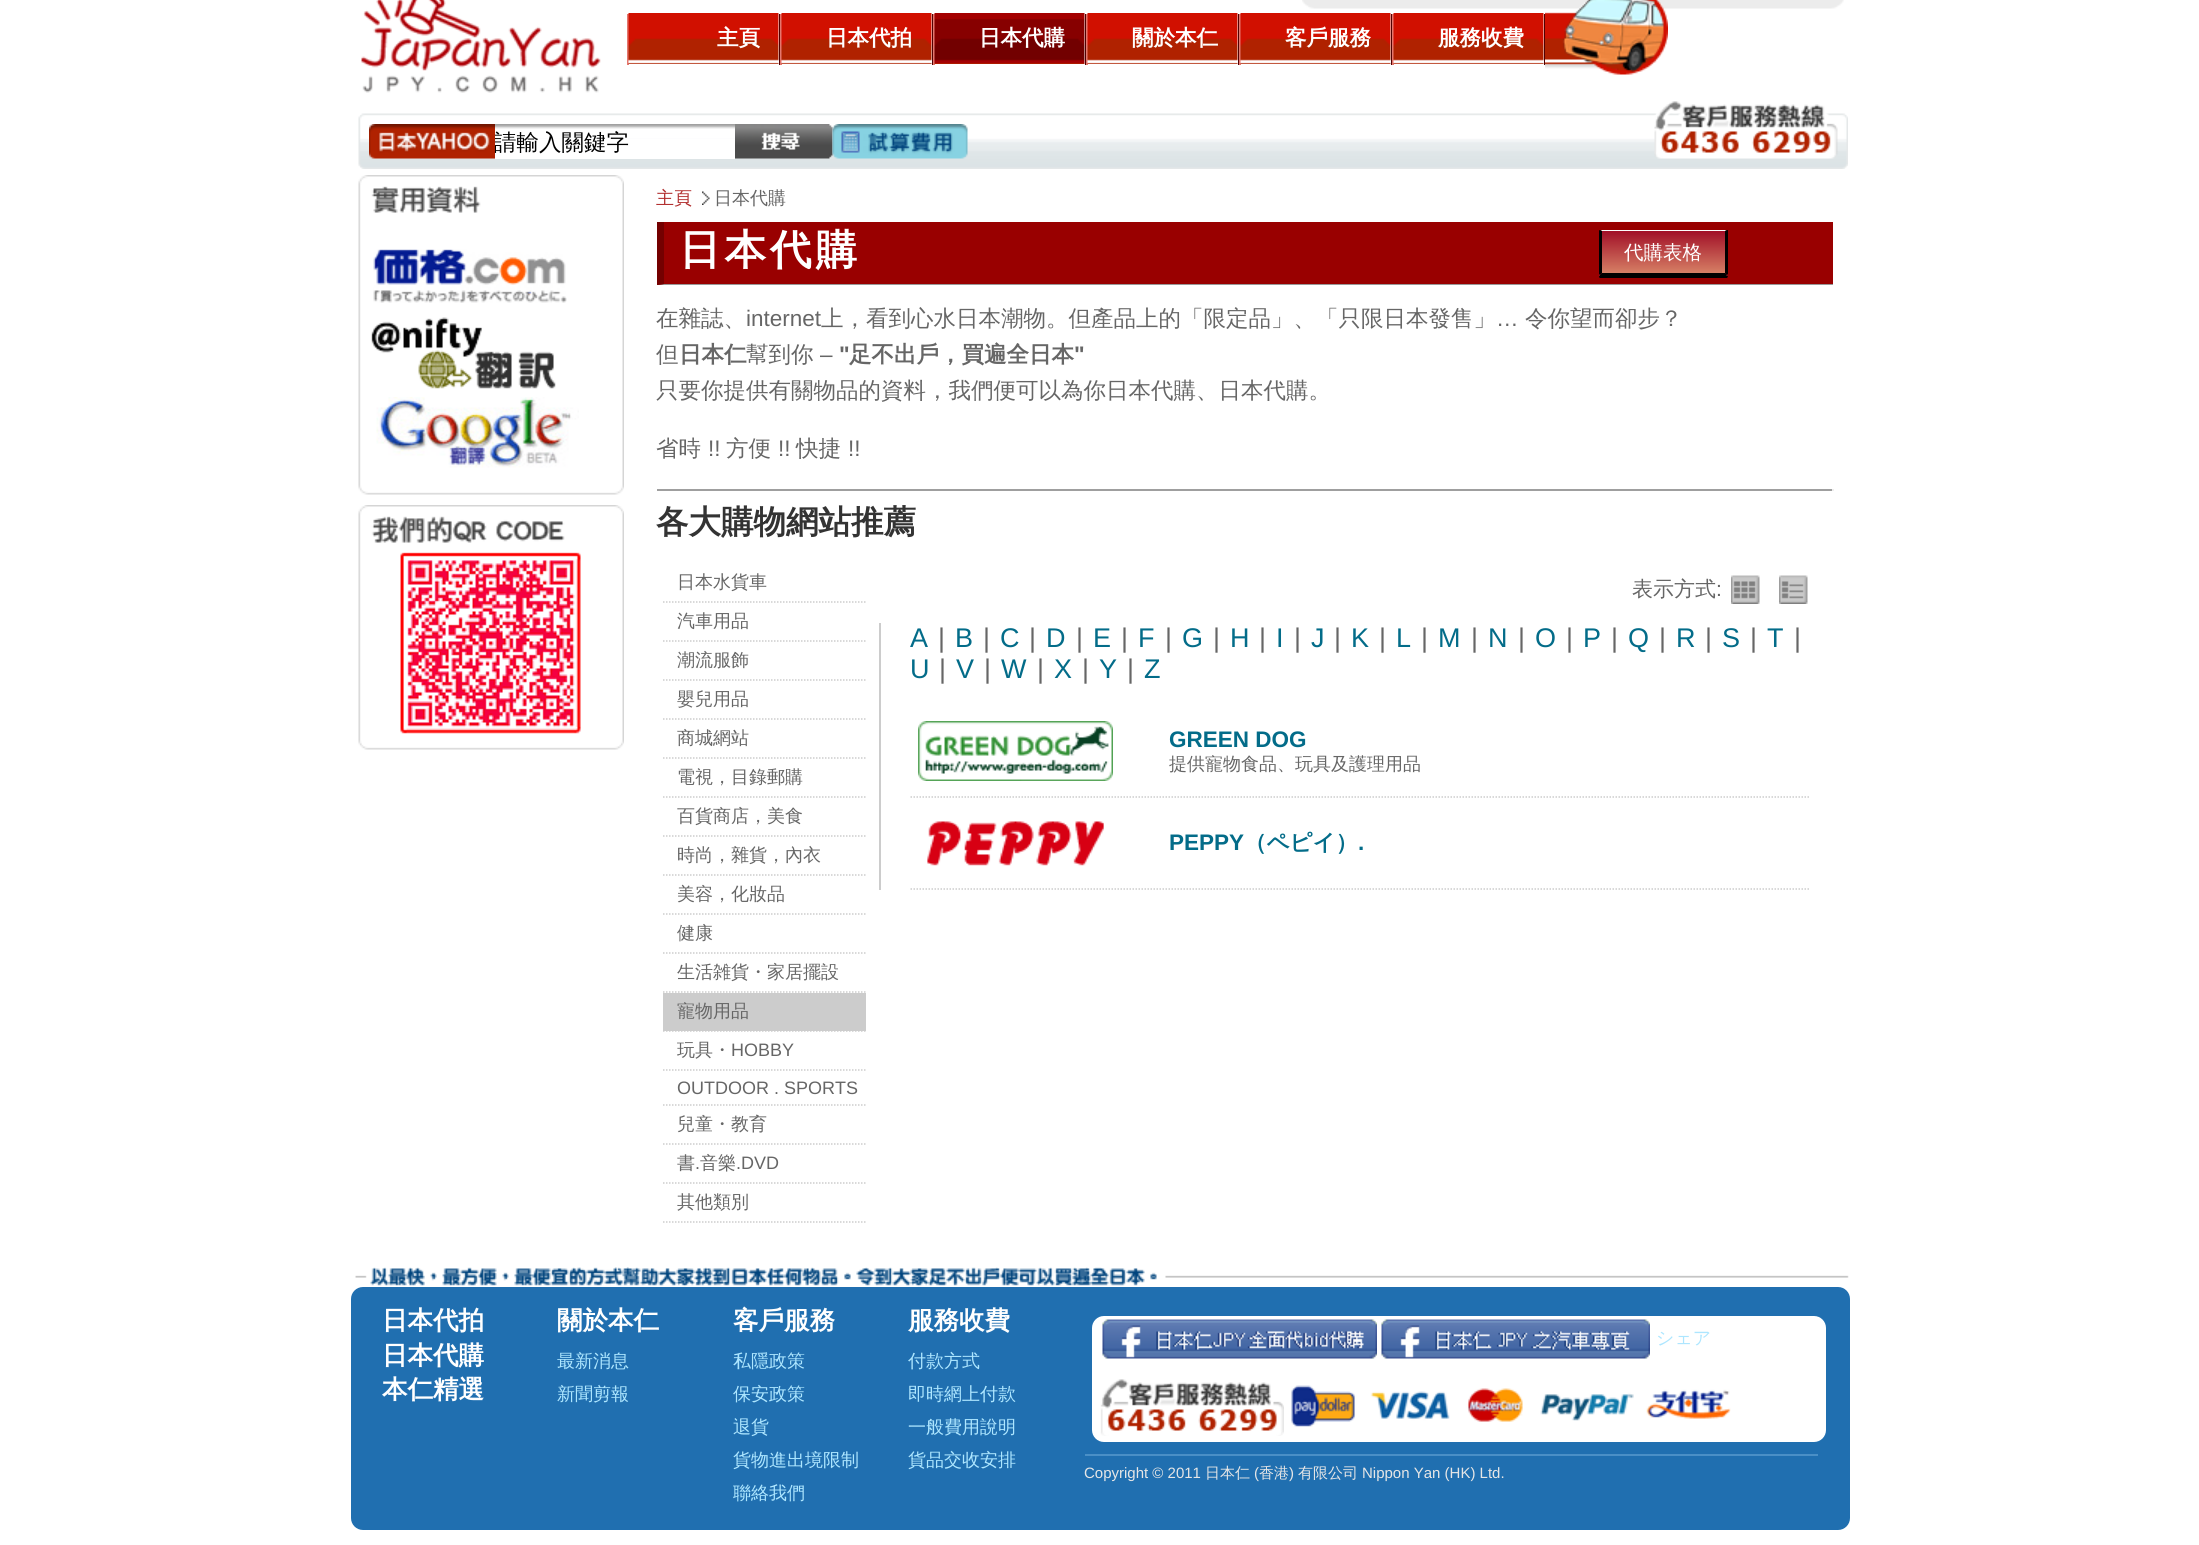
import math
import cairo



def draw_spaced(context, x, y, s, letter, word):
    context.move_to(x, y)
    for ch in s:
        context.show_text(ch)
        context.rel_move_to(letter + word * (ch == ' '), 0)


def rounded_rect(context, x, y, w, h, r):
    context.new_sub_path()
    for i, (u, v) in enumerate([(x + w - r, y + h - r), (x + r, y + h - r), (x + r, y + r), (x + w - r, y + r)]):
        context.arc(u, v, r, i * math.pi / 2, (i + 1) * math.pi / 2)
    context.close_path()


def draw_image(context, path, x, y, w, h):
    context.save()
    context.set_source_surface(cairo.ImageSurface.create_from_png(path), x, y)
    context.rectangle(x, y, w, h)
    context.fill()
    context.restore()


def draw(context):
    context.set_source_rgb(1, 1, 1)
    context.paint()
    draw_image(context, "images/1.png", 1302, 0, 542, 9)
    draw_image(context, "images/2.png", 361, 0, 240, 93)
    context.set_source_rgb(80 / 255, 0, 1 / 255)
    context.rectangle(779, 14, 1, 51)
    context.fill()
    context.set_source_rgb(229 / 255, 119 / 255, 110 / 255)
    context.rectangle(627, 14, 2, 51)
    context.fill()
    draw_image(context, "images/3.png", 628, 13, 151, 51)
    context.set_source_rgb(80 / 255, 0, 1 / 255)
    context.rectangle(932, 14, 1, 51)
    context.fill()
    context.set_source_rgb(229 / 255, 119 / 255, 110 / 255)
    context.rectangle(780, 14, 2, 51)
    context.fill()
    draw_image(context, "images/4.png", 781, 13, 151, 51)
    context.set_source_rgb(80 / 255, 0, 1 / 255)
    context.rectangle(1085, 14, 1, 51)
    context.fill()
    context.set_source_rgb(229 / 255, 119 / 255, 110 / 255)
    context.rectangle(933, 14, 2, 51)
    context.fill()
    draw_image(context, "images/5.png", 934, 13, 151, 51)
    context.set_source_rgb(80 / 255, 0, 1 / 255)
    context.rectangle(1238, 14, 1, 51)
    context.fill()
    context.set_source_rgb(229 / 255, 119 / 255, 110 / 255)
    context.rectangle(1086, 14, 2, 51)
    context.fill()
    draw_image(context, "images/6.png", 1087, 13, 151, 51)
    context.set_source_rgb(80 / 255, 0, 1 / 255)
    context.rectangle(1391, 14, 1, 51)
    context.fill()
    context.set_source_rgb(229 / 255, 119 / 255, 110 / 255)
    context.rectangle(1239, 14, 2, 51)
    context.fill()
    draw_image(context, "images/4.png", 1240, 13, 151, 51)
    context.set_source_rgb(80 / 255, 0, 1 / 255)
    context.rectangle(1544, 14, 1, 51)
    context.fill()
    context.set_source_rgb(229 / 255, 119 / 255, 110 / 255)
    context.rectangle(1392, 14, 2, 51)
    context.fill()
    draw_image(context, "images/3.png", 1393, 13, 151, 51)
    draw_image(context, "images/7.png", 1545, 0, 123, 75)
    draw_image(context, "images/8.png", 358, 113, 1490, 56)
    draw_image(context, "images/9.png", 369, 124, 126, 35)
    context.set_source_rgb(1, 1, 1)
    context.rectangle(495, 139, 240, 20)
    context.fill()
    draw_image(context, "images/10.png", 495, 124, 240, 5)
    draw_image(context, "images/11.png", 735, 124, 98, 35)
    draw_image(context, "images/12.png", 832, 124, 136, 35)
    draw_image(context, "images/13.png", 1654, 101, 184, 58)
    draw_image(context, "images/14.png", 358, 175, 266, 320)
    draw_image(context, "images/15.png", 373, 249, 194, 54)
    draw_image(context, "images/16.png", 371, 317, 185, 72)
    draw_image(context, "images/17.png", 376, 397, 203, 71)
    draw_image(context, "images/18.png", 358, 505, 266, 245)
    draw_image(context, "images/19.png", 702, 191, 8, 14)
    context.set_source_rgb(153 / 255, 0, 0)
    context.rectangle(657, 222, 1176, 63)
    context.fill()
    context.set_source_rgb(153 / 255, 153 / 255, 153 / 255)
    context.new_path()
    context.move_to(1833, 285)
    context.line_to(657, 285)
    context.line_to(664, 284)
    context.line_to(1833, 284)
    context.close_path()
    context.fill()
    context.set_source_rgb(116 / 255, 0, 0)
    context.new_path()
    context.move_to(657, 285)
    context.line_to(657, 222)
    context.line_to(664, 222)
    context.line_to(664, 284)
    context.close_path()
    context.fill()
    context.set_source_rgb(0, 0, 0)
    context.new_path()
    context.move_to(1599, 274)
    context.curve_to(1599, 276, 1599, 278, 1600, 278)
    context.line_to(1727, 278)
    context.curve_to(1728, 277, 1728, 276, 1728, 274)
    context.curve_to(1728, 275, 1727, 276, 1726, 276)
    context.line_to(1600, 276)
    context.curve_to(1600, 276, 1599, 275, 1599, 274)
    context.close_path()
    context.fill()
    gradient = cairo.LinearGradient(1664, 231, 1664, 273)
    gradient.add_color_stop_rgba(0, 161 / 255, 15 / 255, 39 / 255, 1)
    gradient.add_color_stop_rgba(1, 214 / 255, 127 / 255, 101 / 255, 1)
    context.set_source(gradient)
    context.rectangle(1602, 231, 123, 42)
    context.fill()
    gradient = cairo.LinearGradient(1664, 273, 1664, 315)
    gradient.add_color_stop_rgba(0, 161 / 255, 15 / 255, 39 / 255, 1)
    gradient.add_color_stop_rgba(1, 214 / 255, 127 / 255, 101 / 255, 1)
    context.set_source(gradient)
    context.new_path()
    context.move_to(1599, 273)
    context.line_to(1728, 273)
    context.line_to(1728, 274.5)
    context.curve_to(1728, 275.5, 1727.5, 276, 1726.5, 276)
    context.line_to(1600.5, 276)
    context.curve_to(1599.5, 276, 1599, 275.5, 1599, 274.5)
    context.close_path()
    context.fill()
    context.set_source_rgb(252 / 255, 252 / 255, 252 / 255)
    context.new_path()
    context.move_to(1600, 230)
    context.line_to(1602, 231)
    context.line_to(1725, 231)
    context.line_to(1727, 230)
    context.line_to(1726, 230)
    context.close_path()
    context.fill()
    context.set_source_rgb(0, 0, 0)
    context.new_path()
    context.move_to(1727, 230)
    context.curve_to(1728, 230, 1728, 230, 1728, 231)
    context.line_to(1728, 274)
    context.line_to(1727, 275)
    context.line_to(1725, 273)
    context.line_to(1725, 231)
    context.close_path()
    context.fill()
    context.new_path()
    context.move_to(1600, 276)
    context.line_to(1726, 276)
    context.line_to(1727, 275)
    context.line_to(1725, 273)
    context.line_to(1602, 273)
    context.line_to(1600, 275)
    context.close_path()
    context.fill()
    context.new_path()
    context.move_to(1600, 230)
    context.curve_to(1600, 230, 1599, 230, 1599, 231)
    context.line_to(1599, 274)
    context.line_to(1600, 275)
    context.line_to(1602, 273)
    context.line_to(1602, 231)
    context.close_path()
    context.fill()
    context.set_source_rgb(159 / 255, 159 / 255, 159 / 255)
    context.rectangle(657, 489, 1176, 2)
    context.fill()
    context.set_source_rgb(238 / 255, 238 / 255, 238 / 255)
    context.rectangle(1832, 489, 2, 2)
    context.fill()
    context.new_path()
    context.move_to(663, 602)
    context.line_to(865.5, 602)
    context.set_source_rgb(204 / 255, 204 / 255, 204 / 255)
    context.set_line_width(1.5)
    context.set_dash([1.5, 1.5])
    context.stroke()
    context.new_path()
    context.move_to(663, 641)
    context.line_to(865.5, 641)
    context.stroke()
    context.new_path()
    context.move_to(663, 680)
    context.line_to(865.5, 680)
    context.stroke()
    context.new_path()
    context.move_to(663, 719)
    context.line_to(865.5, 719)
    context.stroke()
    context.new_path()
    context.move_to(663, 758)
    context.line_to(865.5, 758)
    context.stroke()
    context.new_path()
    context.move_to(663, 797)
    context.line_to(865.5, 797)
    context.stroke()
    context.new_path()
    context.move_to(663, 836)
    context.line_to(865.5, 836)
    context.stroke()
    context.new_path()
    context.move_to(663, 875)
    context.line_to(865.5, 875)
    context.stroke()
    context.new_path()
    context.move_to(663, 914)
    context.line_to(865.5, 914)
    context.stroke()
    context.new_path()
    context.move_to(663, 953)
    context.line_to(865.5, 953)
    context.stroke()
    context.new_path()
    context.move_to(663, 992)
    context.line_to(865.5, 992)
    context.stroke()
    context.new_path()
    context.move_to(663, 1031)
    context.line_to(865.5, 1031)
    context.stroke()
    context.rectangle(663, 993, 203, 38)
    context.fill()
    context.new_path()
    context.move_to(663, 1070)
    context.line_to(865.5, 1070)
    context.stroke()
    context.new_path()
    context.move_to(663, 1105)
    context.line_to(865.5, 1105)
    context.stroke()
    context.new_path()
    context.move_to(663, 1144)
    context.line_to(865.5, 1144)
    context.stroke()
    context.new_path()
    context.move_to(663, 1183)
    context.line_to(865.5, 1183)
    context.stroke()
    context.new_path()
    context.move_to(663, 1222)
    context.line_to(865.5, 1222)
    context.stroke()
    draw_image(context, "images/20.png", 1731, 575, 29, 29)
    draw_image(context, "images/21.png", 1779, 575, 29, 29)
    context.rectangle(879, 623, 2, 267)
    context.fill()
    context.new_path()
    context.move_to(910.5, 797)
    context.line_to(1162.5, 797)
    context.stroke()
    draw_image(context, "images/22.png", 918, 721, 195, 60)
    context.new_path()
    context.move_to(1162.5, 797)
    context.line_to(1810.5, 797)
    context.stroke()
    context.new_path()
    context.move_to(910.5, 889)
    context.line_to(1162.5, 889)
    context.stroke()
    draw_image(context, "images/23.png", 927, 821, 177, 45)
    context.new_path()
    context.move_to(1162.5, 889)
    context.line_to(1810.5, 889)
    context.stroke()
    draw_image(context, "images/24.png", 355, 1267, 1494, 20)
    context.set_source_rgb(32 / 255, 111 / 255, 176 / 255)
    rounded_rect(context, 351, 1287, 1499, 243, 12)
    context.fill()
    context.set_source_rgb(1, 1, 1)
    rounded_rect(context, 1092, 1316, 734, 126, 12)
    context.fill()
    draw_image(context, "images/25.png", 1102, 1319, 275, 40)
    draw_image(context, "images/26.png", 1381, 1319, 269, 40)
    draw_image(context, "images/27.png", 1100, 1379, 184, 57)
    draw_image(context, "images/28.png", 1291, 1385, 440, 42)
    context.set_source_rgb(74 / 255, 143 / 255, 198 / 255)
    context.rectangle(1085, 1454, 733, 2)
    context.fill()
    context.select_font_face("WenQuanYi Zen Hei", cairo.FontSlant.NORMAL, cairo.FontWeight.BOLD)
    context.set_font_size(21.5)
    context.set_source_rgb(1, 1, 1)
    context.move_to(717, 45)
    context.show_text("主頁")
    context.move_to(826, 45)
    context.show_text("日本代拍")
    context.move_to(979, 45)
    context.show_text("日本代購")
    context.move_to(1132, 45)
    context.show_text("關於本仁")
    context.move_to(1285, 45)
    context.show_text("客戶服務")
    context.move_to(1438, 45)
    context.show_text("服務收費")
    context.save()
    context.rectangle(495, 125, 240, 34)
    context.clip()
    context.select_font_face("WenQuanYi Zen Hei Medium")
    context.set_font_size(22.5)
    context.set_source_rgb(0, 0, 0)
    context.move_to(494, 150)
    context.show_text("請輸入關鍵字")
    context.restore()
    context.select_font_face("WenQuanYi Zen Hei Medium")
    context.set_font_size(18)
    context.set_source_rgb(177 / 255, 46 / 255, 46 / 255)
    context.move_to(656, 204)
    context.show_text("主頁")
    context.set_source_rgb(102 / 255, 102 / 255, 102 / 255)
    context.move_to(714, 204)
    context.show_text("日本代購")
    context.select_font_face("WenQuanYi Zen Hei", cairo.FontSlant.NORMAL, cairo.FontWeight.BOLD)
    context.set_font_size(41.5)
    context.set_source_rgb(1, 1, 1)
    draw_spaced(context, 679, 264, "日本代購", 4, 0)
    context.select_font_face("WenQuanYi Zen Hei Medium")
    context.set_font_size(19.5)
    context.move_to(1624, 259)
    context.show_text("代購表格")
    context.set_font_size(22.5)
    context.set_source_rgb(102 / 255, 102 / 255, 102 / 255)
    context.move_to(656, 326)
    context.show_text("在雜誌、")
    context.select_font_face("Liberation Sans")
    context.move_to(746, 326)
    context.show_text("internet")
    context.select_font_face("WenQuanYi Zen Hei Medium")
    context.move_to(821, 326)
    context.show_text("上，看到心水日本潮物。但產品上的「限定品」、「只限日本發售」")
    context.select_font_face("Liberation Sans")
    context.move_to(1496, 326)
    context.show_text("…")
    context.select_font_face("WenQuanYi Zen Hei Medium")
    context.move_to(1525, 326)
    context.show_text("令你望而卻步？")
    context.move_to(656, 362)
    context.show_text("但")
    context.select_font_face("WenQuanYi Zen Hei", cairo.FontSlant.NORMAL, cairo.FontWeight.BOLD)
    context.move_to(679, 362)
    context.show_text("日本仁")
    context.select_font_face("WenQuanYi Zen Hei Medium")
    context.move_to(746, 362)
    context.show_text("幫到你")
    context.select_font_face("Liberation Sans", cairo.FontSlant.NORMAL, cairo.FontWeight.BOLD)
    context.move_to(839, 362)
    context.show_text("\"")
    context.select_font_face("WenQuanYi Zen Hei", cairo.FontSlant.NORMAL, cairo.FontWeight.BOLD)
    context.move_to(849, 362)
    context.show_text("足不出戶，買遍全日本")
    context.select_font_face("Liberation Sans", cairo.FontSlant.NORMAL, cairo.FontWeight.BOLD)
    context.move_to(1074, 362)
    context.show_text("\"")
    context.select_font_face("Liberation Sans")
    context.move_to(820, 362)
    context.show_text("–")
    context.select_font_face("WenQuanYi Zen Hei Medium")
    context.move_to(656, 398)
    context.show_text("只要你提供有關物品的資料，我們便可以為你日本代購、日本代購。")
    context.move_to(656, 456)
    context.show_text("省時")
    context.select_font_face("Liberation Sans")
    context.move_to(708, 456)
    context.show_text("!!")
    context.select_font_face("WenQuanYi Zen Hei Medium")
    context.move_to(726, 456)
    context.show_text("方便")
    context.select_font_face("Liberation Sans")
    context.move_to(778, 456)
    context.show_text("!!")
    context.select_font_face("WenQuanYi Zen Hei Medium")
    context.move_to(796, 456)
    context.show_text("快捷")
    context.select_font_face("Liberation Sans")
    context.move_to(848, 456)
    context.show_text("!!")
    context.select_font_face("WenQuanYi Zen Hei", cairo.FontSlant.NORMAL, cairo.FontWeight.BOLD)
    context.set_font_size(32.5)
    context.set_source_rgb(51 / 255, 51 / 255, 51 / 255)
    context.move_to(656, 533)
    context.show_text("各大購物網站推薦")
    context.select_font_face("WenQuanYi Zen Hei Medium")
    context.set_font_size(18)
    context.set_source_rgb(102 / 255, 102 / 255, 102 / 255)
    context.move_to(677, 588)
    context.show_text("日本水貨車")
    context.move_to(677, 627)
    context.show_text("汽車用品")
    context.move_to(677, 666)
    context.show_text("潮流服飾")
    context.move_to(677, 705)
    context.show_text("嬰兒用品")
    context.move_to(677, 744)
    context.show_text("商城網站")
    context.move_to(677, 783)
    context.show_text("電視，目錄郵購")
    context.move_to(677, 822)
    context.show_text("百貨商店，美食")
    context.move_to(677, 861)
    context.show_text("時尚，雜貨，內衣")
    context.move_to(677, 900)
    context.show_text("美容，化妝品")
    context.move_to(677, 939)
    context.show_text("健康")
    context.move_to(677, 978)
    context.show_text("生活雑貨・家居擺設")
    context.move_to(677, 1017)
    context.show_text("寵物用品")
    context.move_to(677, 1056)
    context.show_text("玩具・")
    context.select_font_face("Liberation Sans")
    context.move_to(731, 1056)
    context.show_text("HOBBY")
    context.move_to(677, 1094)
    context.show_text("OUTDOOR . SPORTS")
    context.select_font_face("WenQuanYi Zen Hei Medium")
    context.move_to(677, 1130)
    context.show_text("兒童・教育")
    context.move_to(677, 1169)
    context.show_text("書")
    context.select_font_face("Liberation Sans")
    context.move_to(695, 1169)
    context.show_text(".")
    context.select_font_face("WenQuanYi Zen Hei Medium")
    context.move_to(700, 1169)
    context.show_text("音樂")
    context.select_font_face("Liberation Sans")
    context.move_to(736, 1169)
    context.show_text(".DVD")
    context.select_font_face("WenQuanYi Zen Hei Medium")
    context.move_to(677, 1208)
    context.show_text("其他類別")
    context.set_font_size(21)
    context.move_to(1632, 596)
    context.show_text("表示方式")
    context.select_font_face("Liberation Sans")
    context.move_to(1716, 596)
    context.show_text(":")
    context.set_font_size(27)
    context.set_source_rgb(3 / 255, 108 / 255, 137 / 255)
    context.move_to(910, 647)
    context.show_text("A")
    context.set_source_rgb(102 / 255, 102 / 255, 102 / 255)
    context.move_to(938, 647)
    context.show_text("|")
    context.set_source_rgb(3 / 255, 108 / 255, 137 / 255)
    context.move_to(955, 647)
    context.show_text("B")
    context.set_source_rgb(102 / 255, 102 / 255, 102 / 255)
    context.move_to(983, 647)
    context.show_text("|")
    context.set_source_rgb(3 / 255, 108 / 255, 137 / 255)
    context.move_to(1000, 647)
    context.show_text("C")
    context.set_source_rgb(102 / 255, 102 / 255, 102 / 255)
    context.move_to(1029, 647)
    context.show_text("|")
    context.set_source_rgb(3 / 255, 108 / 255, 137 / 255)
    context.move_to(1046, 647)
    context.show_text("D")
    context.set_source_rgb(102 / 255, 102 / 255, 102 / 255)
    context.move_to(1076, 647)
    context.show_text("|")
    context.set_source_rgb(3 / 255, 108 / 255, 137 / 255)
    context.move_to(1093, 647)
    context.show_text("E")
    context.set_source_rgb(102 / 255, 102 / 255, 102 / 255)
    context.move_to(1121, 647)
    context.show_text("|")
    context.set_source_rgb(3 / 255, 108 / 255, 137 / 255)
    context.move_to(1138, 647)
    context.show_text("F")
    context.set_source_rgb(102 / 255, 102 / 255, 102 / 255)
    context.move_to(1165, 647)
    context.show_text("|")
    context.set_source_rgb(3 / 255, 108 / 255, 137 / 255)
    context.move_to(1182, 647)
    context.show_text("G")
    context.set_source_rgb(102 / 255, 102 / 255, 102 / 255)
    context.move_to(1213, 647)
    context.show_text("|")
    context.set_source_rgb(3 / 255, 108 / 255, 137 / 255)
    context.move_to(1230, 647)
    context.show_text("H")
    context.set_source_rgb(102 / 255, 102 / 255, 102 / 255)
    context.move_to(1259, 647)
    context.show_text("|")
    context.set_source_rgb(3 / 255, 108 / 255, 137 / 255)
    context.move_to(1276, 647)
    context.show_text("I")
    context.set_source_rgb(102 / 255, 102 / 255, 102 / 255)
    context.move_to(1294, 647)
    context.show_text("|")
    context.set_source_rgb(3 / 255, 108 / 255, 137 / 255)
    context.move_to(1311, 647)
    context.show_text("J")
    context.set_source_rgb(102 / 255, 102 / 255, 102 / 255)
    context.move_to(1334, 647)
    context.show_text("|")
    context.set_source_rgb(3 / 255, 108 / 255, 137 / 255)
    context.move_to(1351, 647)
    context.show_text("K")
    context.set_source_rgb(102 / 255, 102 / 255, 102 / 255)
    context.move_to(1379, 647)
    context.show_text("|")
    context.set_source_rgb(3 / 255, 108 / 255, 137 / 255)
    context.move_to(1396, 647)
    context.show_text("L")
    context.set_source_rgb(102 / 255, 102 / 255, 102 / 255)
    context.move_to(1421, 647)
    context.show_text("|")
    context.set_source_rgb(3 / 255, 108 / 255, 137 / 255)
    context.move_to(1438, 647)
    context.show_text("M")
    context.set_source_rgb(102 / 255, 102 / 255, 102 / 255)
    context.move_to(1471, 647)
    context.show_text("|")
    context.set_source_rgb(3 / 255, 108 / 255, 137 / 255)
    context.move_to(1488, 647)
    context.show_text("N")
    context.set_source_rgb(102 / 255, 102 / 255, 102 / 255)
    context.move_to(1518, 647)
    context.show_text("|")
    context.set_source_rgb(3 / 255, 108 / 255, 137 / 255)
    context.move_to(1535, 647)
    context.show_text("O")
    context.set_source_rgb(102 / 255, 102 / 255, 102 / 255)
    context.move_to(1566, 647)
    context.show_text("|")
    context.set_source_rgb(3 / 255, 108 / 255, 137 / 255)
    context.move_to(1583, 647)
    context.show_text("P")
    context.set_source_rgb(102 / 255, 102 / 255, 102 / 255)
    context.move_to(1611, 647)
    context.show_text("|")
    context.set_source_rgb(3 / 255, 108 / 255, 137 / 255)
    context.move_to(1628, 647)
    context.show_text("Q")
    context.set_source_rgb(102 / 255, 102 / 255, 102 / 255)
    context.move_to(1659, 647)
    context.show_text("|")
    context.set_source_rgb(3 / 255, 108 / 255, 137 / 255)
    context.move_to(1676, 647)
    context.show_text("R")
    context.set_source_rgb(102 / 255, 102 / 255, 102 / 255)
    context.move_to(1705, 647)
    context.show_text("|")
    context.set_source_rgb(3 / 255, 108 / 255, 137 / 255)
    context.move_to(1722, 647)
    context.show_text("S")
    context.set_source_rgb(102 / 255, 102 / 255, 102 / 255)
    context.move_to(1750, 647)
    context.show_text("|")
    context.set_source_rgb(3 / 255, 108 / 255, 137 / 255)
    context.move_to(1767, 647)
    context.show_text("T")
    context.set_source_rgb(102 / 255, 102 / 255, 102 / 255)
    context.move_to(1794, 647)
    context.show_text("|")
    context.set_source_rgb(3 / 255, 108 / 255, 137 / 255)
    context.move_to(910, 678)
    context.show_text("U")
    context.set_source_rgb(102 / 255, 102 / 255, 102 / 255)
    context.move_to(939, 678)
    context.show_text("|")
    context.set_source_rgb(3 / 255, 108 / 255, 137 / 255)
    context.move_to(956, 678)
    context.show_text("V")
    context.set_source_rgb(102 / 255, 102 / 255, 102 / 255)
    context.move_to(984, 678)
    context.show_text("|")
    context.set_source_rgb(3 / 255, 108 / 255, 137 / 255)
    context.move_to(1001, 678)
    context.show_text("W")
    context.set_source_rgb(102 / 255, 102 / 255, 102 / 255)
    context.move_to(1037, 678)
    context.show_text("|")
    context.set_source_rgb(3 / 255, 108 / 255, 137 / 255)
    context.move_to(1054, 678)
    context.show_text("X")
    context.set_source_rgb(102 / 255, 102 / 255, 102 / 255)
    context.move_to(1082, 678)
    context.show_text("|")
    context.set_source_rgb(3 / 255, 108 / 255, 137 / 255)
    context.move_to(1099, 678)
    context.show_text("Y")
    context.set_source_rgb(102 / 255, 102 / 255, 102 / 255)
    context.move_to(1127, 678)
    context.show_text("|")
    context.set_source_rgb(3 / 255, 108 / 255, 137 / 255)
    context.move_to(1144, 678)
    context.show_text("Z")
    context.select_font_face("Liberation Sans", cairo.FontSlant.NORMAL, cairo.FontWeight.BOLD)
    context.set_font_size(22.5)
    context.move_to(1169, 747)
    context.show_text("GREEN DOG")
    context.select_font_face("WenQuanYi Zen Hei Medium")
    context.set_font_size(18)
    context.set_source_rgb(102 / 255, 102 / 255, 102 / 255)
    context.move_to(1169, 770)
    context.show_text("提供寵物食品、玩具及護理用品")
    context.select_font_face("Liberation Sans", cairo.FontSlant.NORMAL, cairo.FontWeight.BOLD)
    context.set_font_size(22.5)
    context.set_source_rgb(3 / 255, 108 / 255, 137 / 255)
    context.move_to(1169, 850)
    context.show_text("PEPPY")
    context.select_font_face("WenQuanYi Zen Hei", cairo.FontSlant.NORMAL, cairo.FontWeight.BOLD)
    context.move_to(1244, 850)
    context.show_text("（ペピイ）")
    context.select_font_face("Liberation Sans", cairo.FontSlant.NORMAL, cairo.FontWeight.BOLD)
    context.move_to(1358, 850)
    context.show_text(".")
    context.select_font_face("WenQuanYi Zen Hei", cairo.FontSlant.NORMAL, cairo.FontWeight.BOLD)
    context.set_font_size(25.5)
    context.set_source_rgb(1, 1, 1)
    context.move_to(382, 1329)
    context.show_text("日本代拍")
    context.move_to(382, 1364)
    context.show_text("日本代購")
    context.move_to(382, 1398)
    context.show_text("本仁精選")
    context.move_to(557, 1329)
    context.show_text("關於本仁")
    context.move_to(733, 1329)
    context.show_text("客戶服務")
    context.move_to(908, 1329)
    context.show_text("服務收費")
    context.select_font_face("WenQuanYi Zen Hei Medium")
    context.set_font_size(18)
    context.set_source_rgb(173 / 255, 230 / 255, 1)
    context.move_to(1656, 1344)
    context.show_text("シェア")
    context.select_font_face("Liberation Sans")
    context.set_font_size(15)
    context.set_source_rgb(230 / 255, 230 / 255, 230 / 255)
    context.move_to(1084, 1478)
    context.show_text("Copyright © 2011")
    context.select_font_face("WenQuanYi Zen Hei Medium")
    context.move_to(1205, 1478)
    context.show_text("日本仁")
    context.select_font_face("Liberation Sans")
    context.move_to(1254, 1478)
    context.show_text("(")
    context.select_font_face("WenQuanYi Zen Hei Medium")
    context.move_to(1259, 1478)
    context.show_text("香港")
    context.select_font_face("Liberation Sans")
    context.move_to(1289, 1478)
    context.show_text(")")
    context.select_font_face("WenQuanYi Zen Hei Medium")
    context.move_to(1298, 1478)
    context.show_text("有限公司")
    context.select_font_face("Liberation Sans")
    context.move_to(1362, 1478)
    context.show_text("Nippon Yan (HK) Ltd.")
    context.select_font_face("WenQuanYi Zen Hei Medium")
    context.set_font_size(18)
    context.set_source_rgb(173 / 255, 230 / 255, 1)
    context.move_to(557, 1367)
    context.show_text("最新消息")
    context.move_to(557, 1400)
    context.show_text("新聞剪報")
    context.move_to(733, 1367)
    context.show_text("私隱政策")
    context.move_to(733, 1400)
    context.show_text("保安政策")
    context.move_to(733, 1433)
    context.show_text("退貨")
    context.move_to(733, 1466)
    context.show_text("貨物進出境限制")
    context.move_to(733, 1499)
    context.show_text("聯絡我們")
    context.move_to(908, 1367)
    context.show_text("付款方式")
    context.move_to(908, 1400)
    context.show_text("即時網上付款")
    context.move_to(908, 1433)
    context.show_text("一般費用說明")
    context.move_to(908, 1466)
    context.show_text("貨品交收安排")


surface = cairo.ImageSurface(cairo.Format.RGB24, 2199, 1545)
context = cairo.Context(surface)
options = cairo.FontOptions()
options.set_hint_metrics(cairo.HintMetrics.OFF)
options.set_hint_style(cairo.HintStyle.NONE)
context.set_font_options(options)
context.set_miter_limit(4)
draw(context)
surface.write_to_png("out.png")
